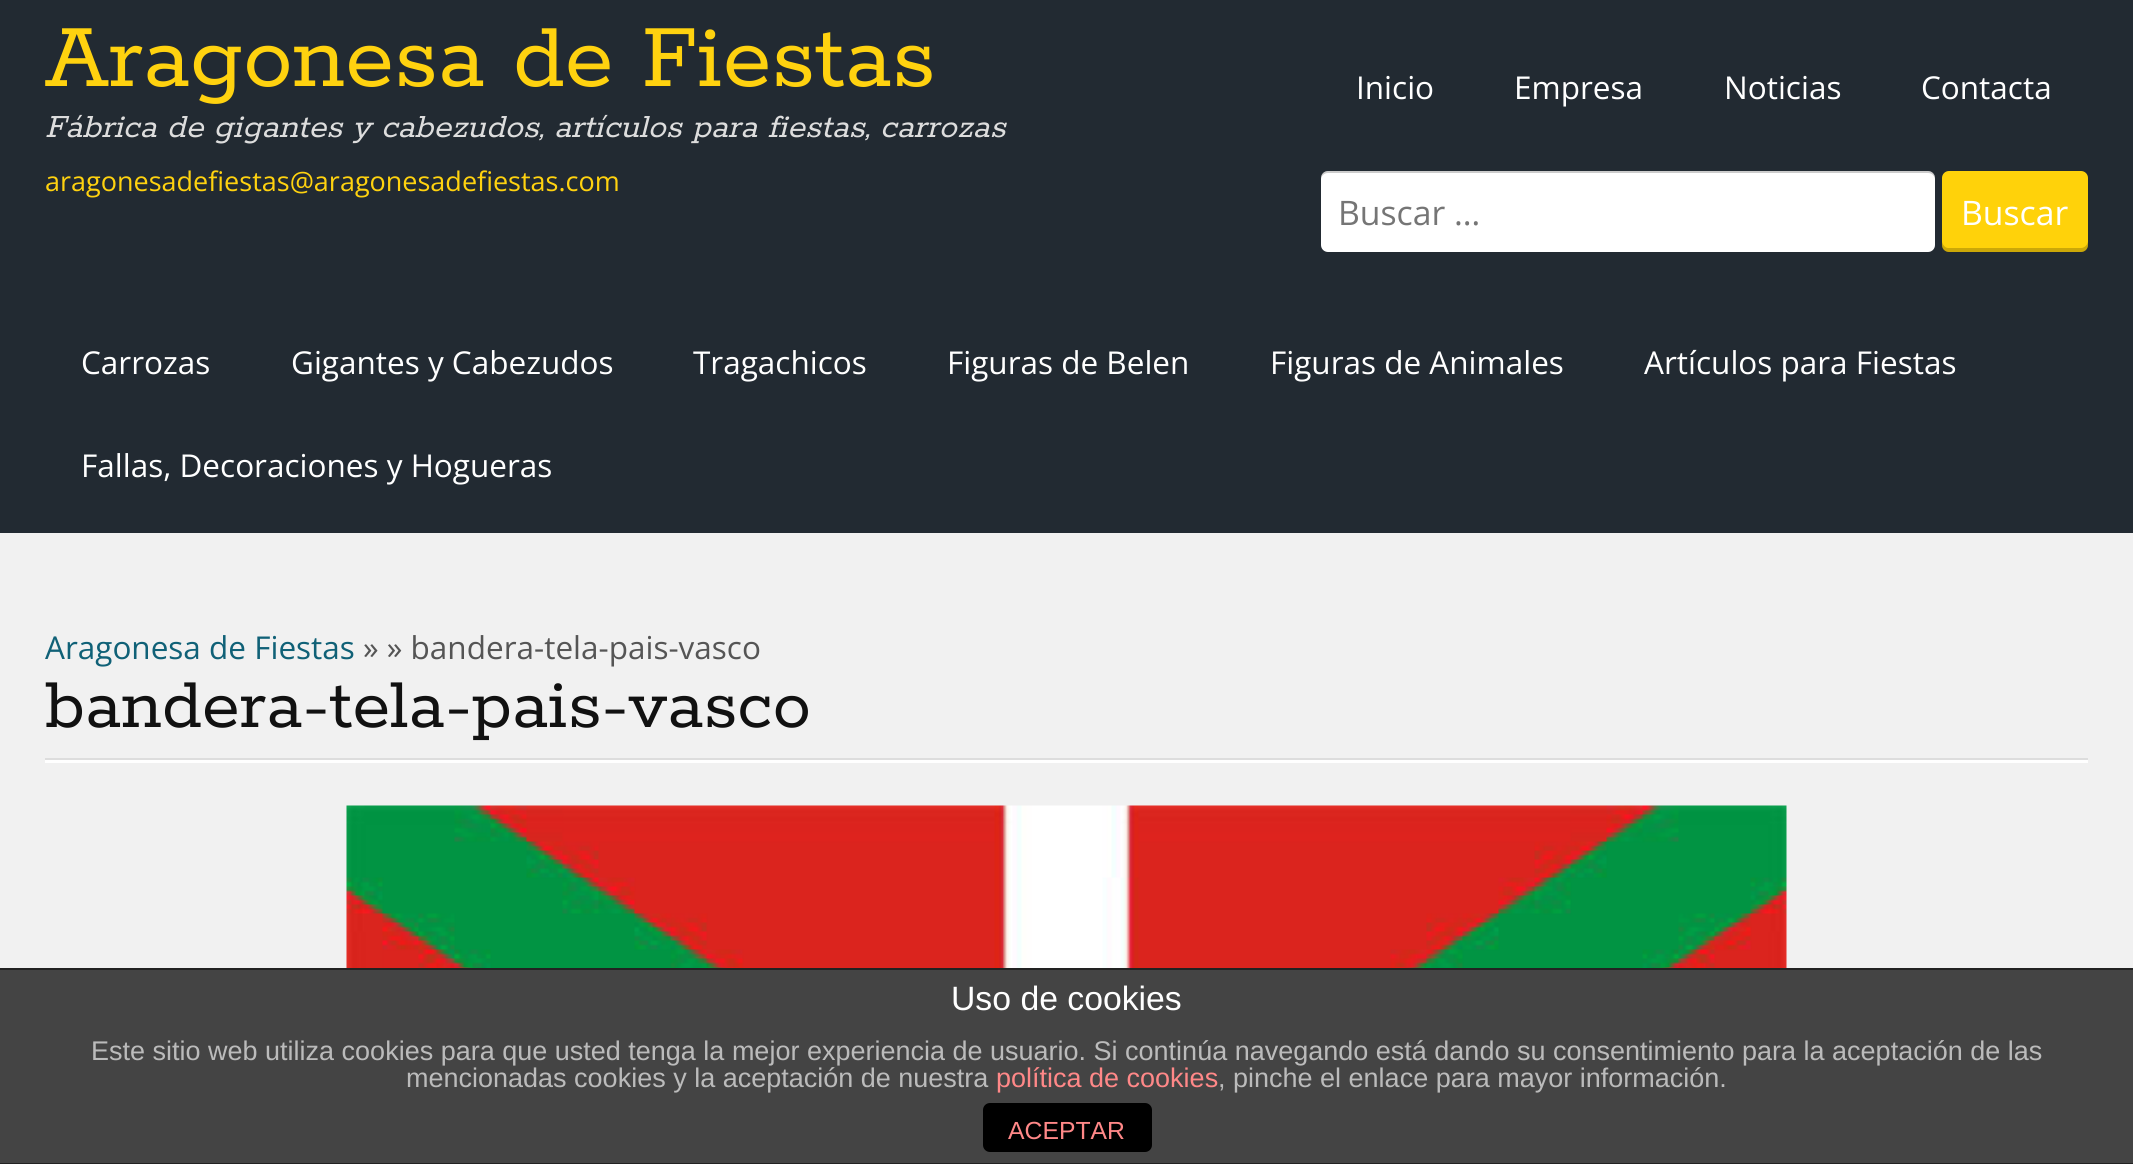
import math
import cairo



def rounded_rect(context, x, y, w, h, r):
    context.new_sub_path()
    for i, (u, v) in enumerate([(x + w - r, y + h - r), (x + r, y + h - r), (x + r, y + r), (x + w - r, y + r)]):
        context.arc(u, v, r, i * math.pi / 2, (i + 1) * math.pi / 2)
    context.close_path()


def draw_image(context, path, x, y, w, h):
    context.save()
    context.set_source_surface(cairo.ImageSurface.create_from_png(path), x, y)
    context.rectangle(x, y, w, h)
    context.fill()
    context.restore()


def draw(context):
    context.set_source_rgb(241 / 255, 241 / 255, 241 / 255)
    context.paint()
    context.set_source_rgb(34 / 255, 42 / 255, 50 / 255)
    context.rectangle(0, 0, 2133, 533)
    context.fill()
    context.set_source_rgb(1, 1, 1)
    rounded_rect(context, 1321, 171, 614, 81, 7)
    context.fill()
    context.set_source_rgba(0, 0, 0, 0.2)
    context.new_path()
    context.move_to(1328, 173)
    context.line_to(1928, 173)
    context.curve_to(1932, 173, 1935, 176, 1935, 180)
    context.line_to(1935, 178)
    context.curve_to(1935, 174, 1932, 171, 1928, 171)
    context.line_to(1328, 171)
    context.curve_to(1324, 171, 1321, 174, 1321, 178)
    context.line_to(1321, 180)
    context.curve_to(1321, 176, 1324, 173, 1328, 173)
    context.close_path()
    context.fill()
    context.set_source_rgb(1, 210 / 255, 10 / 255)
    rounded_rect(context, 1942, 171, 146, 81, 7)
    context.fill()
    context.set_source_rgba(0, 0, 0, 0.2)
    context.new_path()
    context.move_to(1942, 241)
    context.line_to(1942, 245)
    context.curve_to(1942, 249, 1945, 252, 1949, 252)
    context.line_to(2081, 252)
    context.curve_to(2085, 252, 2088, 249, 2088, 245)
    context.line_to(2088, 241)
    context.curve_to(2088, 244, 2085, 248, 2081, 248)
    context.line_to(1948, 248)
    context.curve_to(1945, 248, 1942, 244, 1942, 241)
    context.close_path()
    context.fill()
    context.set_source_rgb(1, 1, 1)
    context.rectangle(45, 760, 2043, 3)
    context.fill()
    context.set_source_rgb(221 / 255, 221 / 255, 221 / 255)
    context.rectangle(45, 758, 2043, 2)
    context.fill()
    draw_image(context, "images/1.png", 346, 805, 1441, 163)
    context.set_source_rgb(68 / 255, 68 / 255, 68 / 255)
    context.rectangle(0, 970, 2133, 193)
    context.fill()
    context.set_source_rgb(34 / 255, 34 / 255, 34 / 255)
    context.rectangle(0, 968, 2133, 2)
    context.fill()
    context.rectangle(0, 1163, 2133, 1)
    context.fill()
    context.set_source_rgb(0, 0, 0)
    rounded_rect(context, 983, 1103, 169, 49, 7)
    context.fill()
    context.select_font_face("Rokkitt")
    context.set_font_size(99)
    context.set_source_rgb(1, 210 / 255, 15 / 255)
    context.move_to(45, 86)
    context.show_text("Aragonesa de Fiestas")
    context.select_font_face("Rokkitt", cairo.FontSlant.ITALIC)
    context.set_font_size(36)
    context.set_source_rgb(221 / 255, 221 / 255, 221 / 255)
    context.move_to(45, 137)
    context.show_text("Fábrica de gigantes y cabezudos, artículos para fiestas, carrozas")
    context.select_font_face("Open Sans")
    context.set_font_size(27)
    context.set_source_rgb(1, 210 / 255, 15 / 255)
    context.move_to(45, 191)
    context.show_text("aragonesadefiestas@aragonesadefiestas.com")
    context.set_font_size(31.5)
    context.set_source_rgb(1, 1, 1)
    context.move_to(1356, 99)
    context.show_text("Inicio")
    context.move_to(1514, 99)
    context.show_text("Empresa")
    context.move_to(1724, 99)
    context.show_text("Noticias")
    context.move_to(1921, 99)
    context.show_text("Contacta")
    context.set_font_size(33.75)
    context.set_source_rgb(117 / 255, 117 / 255, 117 / 255)
    context.move_to(1338, 225)
    context.show_text("Buscar …")
    context.set_source_rgb(1, 1, 1)
    context.move_to(1961, 225)
    context.show_text("Buscar")
    context.set_font_size(31.5)
    context.move_to(81, 374)
    context.show_text("Carrozas")
    context.move_to(291, 374)
    context.show_text("Gigantes y Cabezudos")
    context.move_to(693, 374)
    context.show_text("Tragachicos")
    context.move_to(947, 374)
    context.show_text("Figuras de Belen")
    context.move_to(1270, 374)
    context.show_text("Figuras de Animales")
    context.move_to(1644, 374)
    context.show_text("Artículos para Fiestas")
    context.move_to(81, 477)
    context.show_text("Fallas, Decoraciones y Hogueras")
    context.set_source_rgb(16 / 255, 97 / 255, 119 / 255)
    context.move_to(45, 659)
    context.show_text("Aragonesa de Fiestas")
    context.set_source_rgb(85 / 255, 85 / 255, 85 / 255)
    context.move_to(363, 659)
    context.show_text("» » bandera-tela-pais-vasco")
    context.select_font_face("Rokkitt")
    context.set_font_size(76.5)
    context.set_source_rgb(17 / 255, 17 / 255, 17 / 255)
    context.move_to(45, 727)
    context.show_text("bandera-tela-pais-vasco")
    context.select_font_face("Liberation Sans")
    context.set_font_size(33.75)
    context.set_source_rgb(1, 1, 1)
    context.move_to(951, 1010)
    context.show_text("Uso de cookies")
    context.set_font_size(27)
    context.set_source_rgb(187 / 255, 187 / 255, 187 / 255)
    context.move_to(91, 1060)
    context.show_text("Este sitio web utiliza cookies para que usted tenga la mejor experiencia de usuario. Si continúa navegando está dando su consentimiento para la aceptación de las")
    context.move_to(406, 1087)
    context.show_text("mencionadas cookies y la aceptación de nuestra")
    context.set_source_rgb(1, 136 / 255, 136 / 255)
    context.move_to(996, 1087)
    context.show_text("política de cookies")
    context.set_source_rgb(187 / 255, 187 / 255, 187 / 255)
    context.move_to(1218, 1087)
    context.show_text(", pinche el enlace para mayor información.")
    context.set_font_size(24.75)
    context.set_source_rgb(1, 136 / 255, 136 / 255)
    context.move_to(1008, 1139)
    context.show_text("ACEPTAR")


surface = cairo.ImageSurface(cairo.Format.RGB24, 2133, 1164)
context = cairo.Context(surface)
options = cairo.FontOptions()
options.set_hint_metrics(cairo.HintMetrics.OFF)
options.set_hint_style(cairo.HintStyle.NONE)
context.set_font_options(options)
context.set_miter_limit(4)
draw(context)
surface.write_to_png("out.png")
